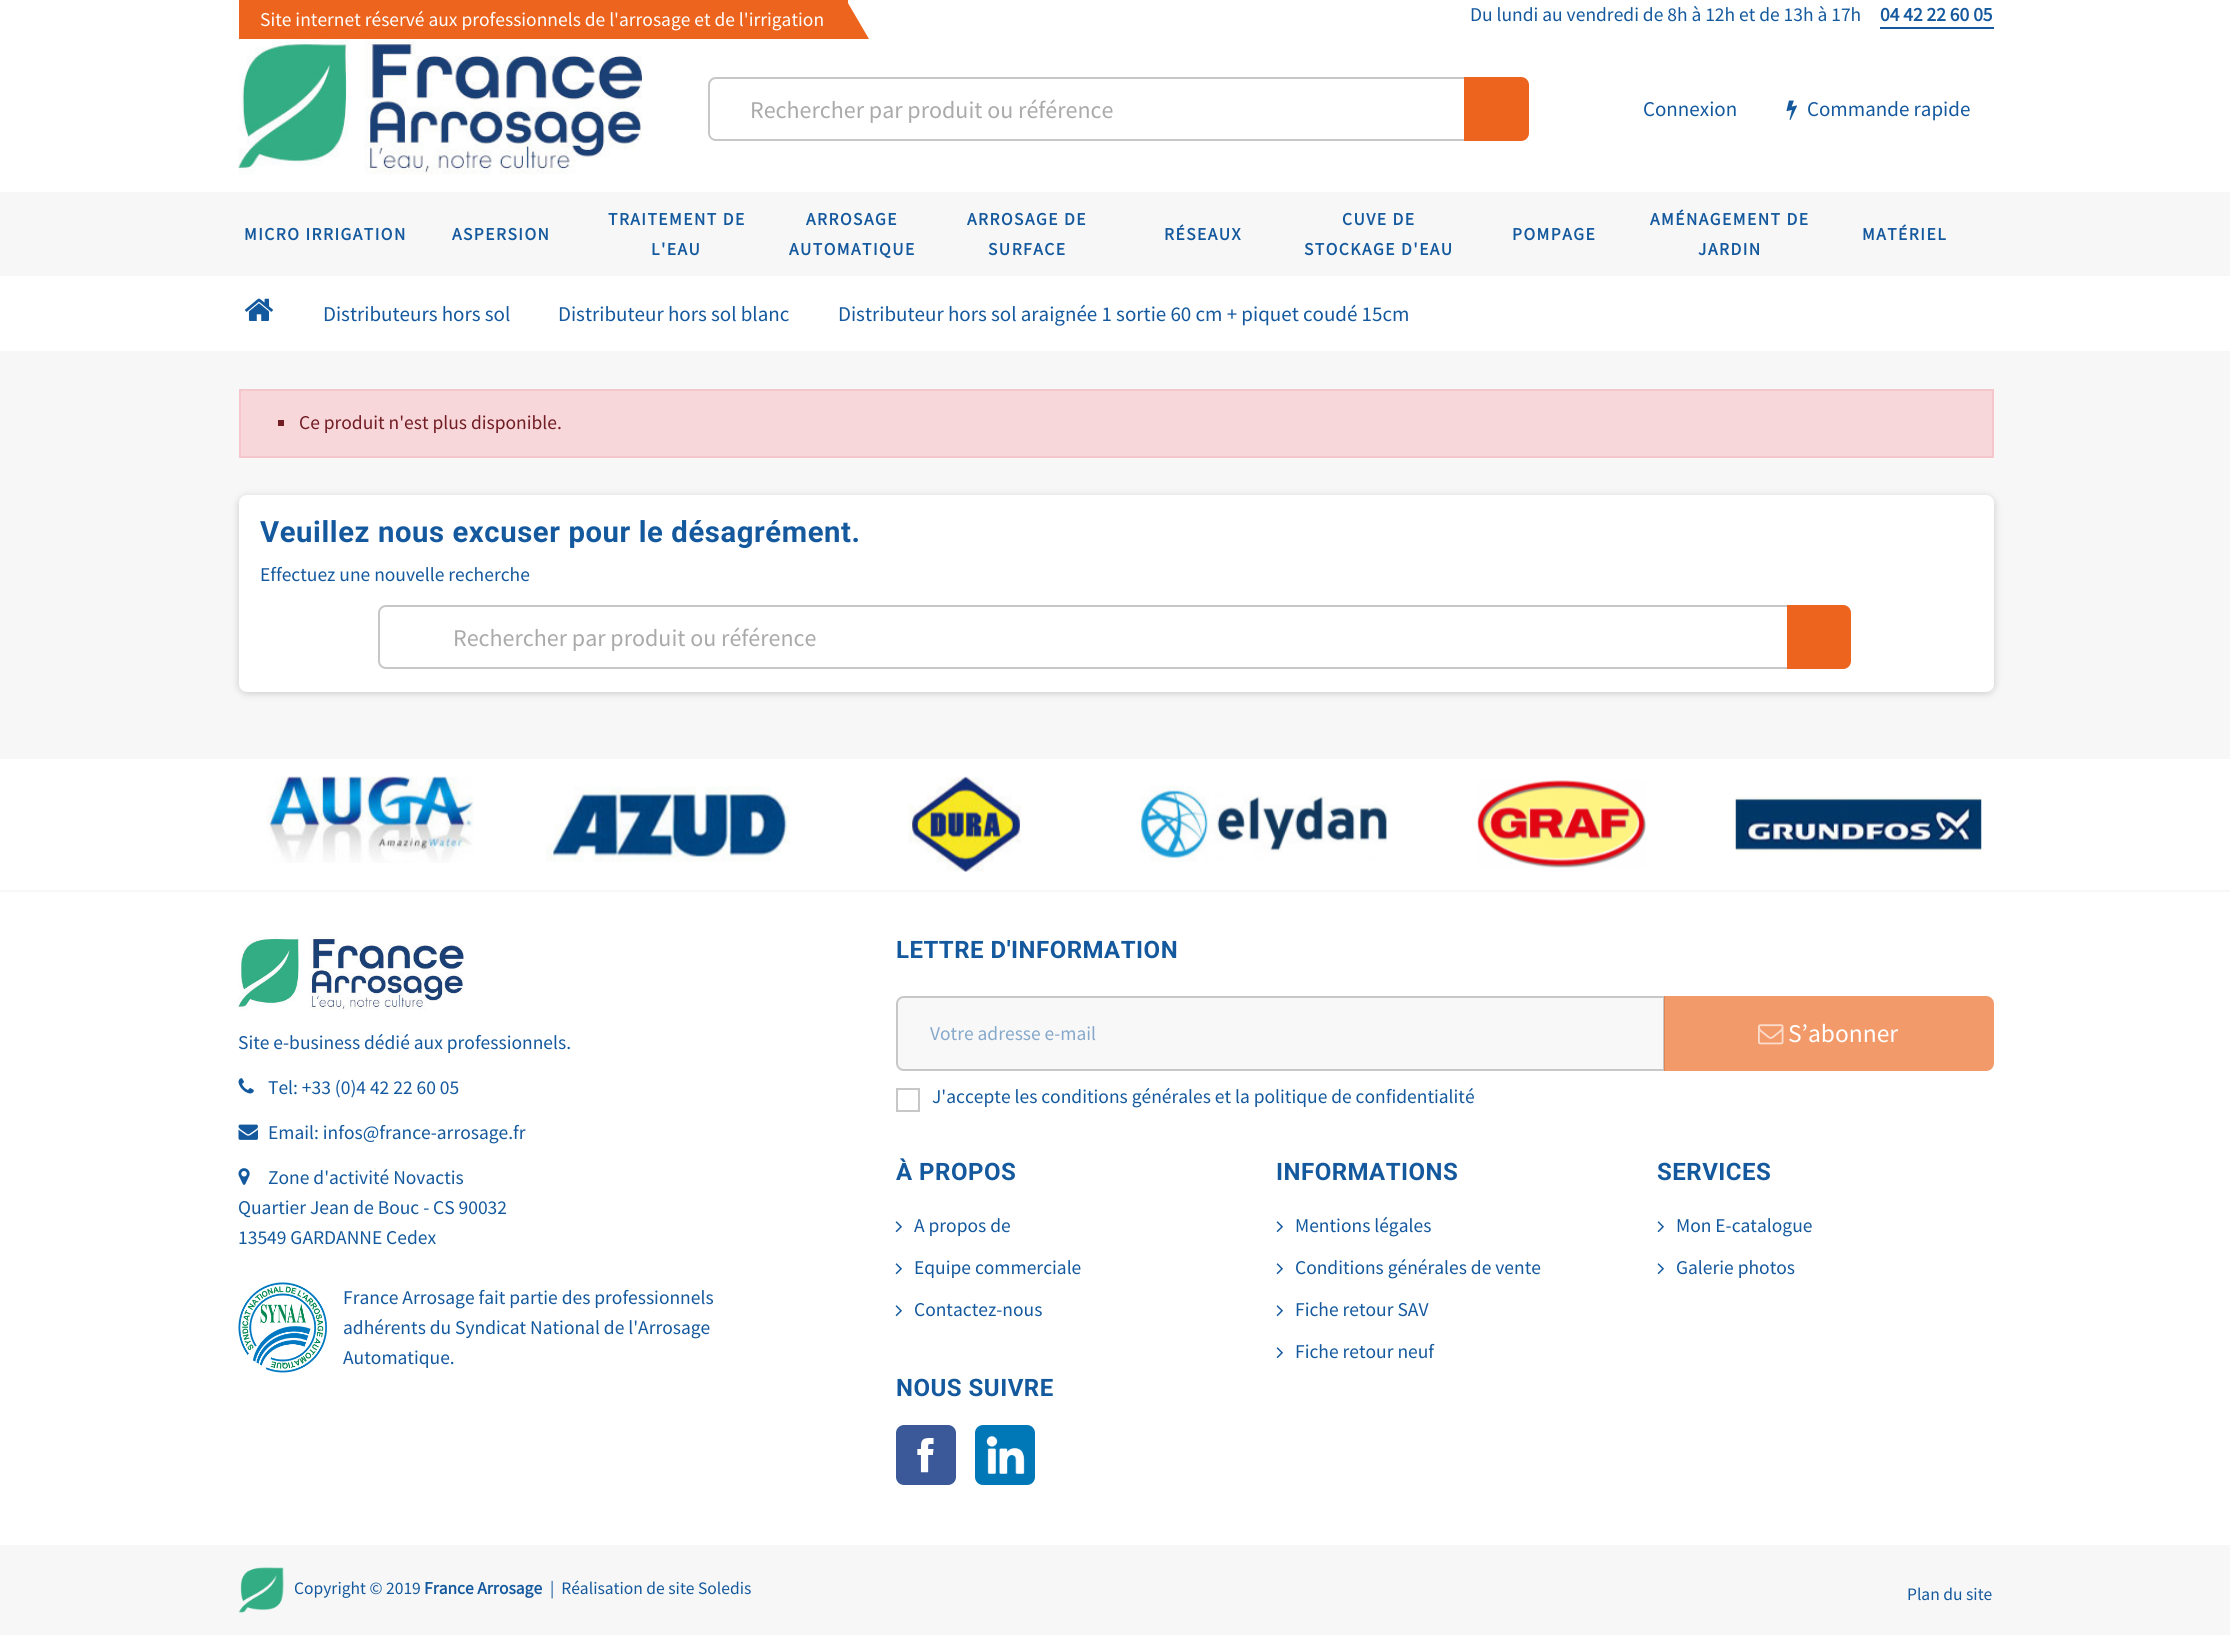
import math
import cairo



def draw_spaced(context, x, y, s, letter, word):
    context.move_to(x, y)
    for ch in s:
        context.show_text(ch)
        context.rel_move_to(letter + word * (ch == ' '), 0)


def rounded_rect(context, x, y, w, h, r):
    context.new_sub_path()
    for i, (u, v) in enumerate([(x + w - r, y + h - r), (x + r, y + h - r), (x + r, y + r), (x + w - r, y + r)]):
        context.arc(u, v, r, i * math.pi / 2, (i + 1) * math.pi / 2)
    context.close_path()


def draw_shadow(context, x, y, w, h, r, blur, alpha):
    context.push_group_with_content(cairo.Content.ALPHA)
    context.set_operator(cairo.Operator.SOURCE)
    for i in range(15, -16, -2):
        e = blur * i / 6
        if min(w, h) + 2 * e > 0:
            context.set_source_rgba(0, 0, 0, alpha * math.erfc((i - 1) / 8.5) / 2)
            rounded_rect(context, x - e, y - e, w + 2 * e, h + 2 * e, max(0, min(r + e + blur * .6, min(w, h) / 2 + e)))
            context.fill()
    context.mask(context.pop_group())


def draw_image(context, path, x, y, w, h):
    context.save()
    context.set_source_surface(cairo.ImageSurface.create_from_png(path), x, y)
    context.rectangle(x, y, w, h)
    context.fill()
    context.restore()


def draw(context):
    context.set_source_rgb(1, 1, 1)
    context.paint()
    context.set_source_rgb(236 / 255, 100 / 255, 29 / 255)
    context.rectangle(239, 0, 609, 39)
    context.fill()
    context.save()
    context.rectangle(216, 0, 900, 39)
    context.clip()
    context.new_path()
    context.move_to(838, -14)
    context.line_to(876, 51)
    context.line_to(811, 89)
    context.line_to(773, 24)
    context.close_path()
    context.fill()
    context.restore()
    context.set_source_rgb(20 / 255, 89 / 255, 158 / 255)
    context.rectangle(1880, 27, 114, 2)
    context.fill()
    draw_image(context, "images/1.png", 238, 39, 404, 136)
    rounded_rect(context, 709, 78, 817, 62, 7)
    context.set_source_rgb(199 / 255, 199 / 255, 199 / 255)
    context.stroke()
    context.set_source_rgb(236 / 255, 100 / 255, 29 / 255)
    context.new_path()
    context.move_to(1464, 77)
    context.line_to(1521, 77)
    context.curve_to(1525.5, 77, 1529, 80.5, 1529, 85)
    context.line_to(1529, 133)
    context.curve_to(1529, 137.5, 1525.5, 141, 1521, 141)
    context.line_to(1464, 141)
    context.close_path()
    context.fill()
    draw_image(context, "images/2.png", 1786, 100, 11, 20)
    context.set_source_rgb(247 / 255, 247 / 255, 247 / 255)
    context.rectangle(0, 192, 2230, 84)
    context.fill()
    context.rectangle(0, 351, 2230, 408)
    context.fill()
    draw_image(context, "images/3.png", 245, 298, 28, 23)
    context.set_source_rgb(248 / 255, 215 / 255, 218 / 255)
    context.rectangle(240, 390, 1753, 67)
    context.fill_preserve()
    context.set_source_rgb(245 / 255, 198 / 255, 203 / 255)
    context.stroke()
    context.set_source_rgb(114 / 255, 28 / 255, 36 / 255)
    context.rectangle(278, 420, 6, 6)
    context.fill()
    context.set_source_rgb(0, 0, 0)
    draw_shadow(context, 239, 497, 1755, 196, 8, 4, 0.2)
    context.set_source_rgb(1, 1, 1)
    rounded_rect(context, 239, 495, 1755, 197, 8)
    context.fill()
    rounded_rect(context, 379, 606, 1470, 62, 7)
    context.set_source_rgb(199 / 255, 199 / 255, 199 / 255)
    context.stroke()
    context.set_source_rgb(236 / 255, 100 / 255, 29 / 255)
    context.new_path()
    context.move_to(1787, 605)
    context.line_to(1843, 605)
    context.curve_to(1847.5, 605, 1851, 608.5, 1851, 613)
    context.line_to(1851, 661)
    context.curve_to(1851, 665.5, 1847.5, 669, 1843, 669)
    context.line_to(1787, 669)
    context.close_path()
    context.fill()
    context.set_source_rgb(247 / 255, 247 / 255, 247 / 255)
    context.rectangle(0, 890, 2230, 2)
    context.fill()
    draw_image(context, "images/4.png", 266, 776, 208, 87)
    draw_image(context, "images/5.png", 546, 786, 244, 76)
    draw_image(context, "images/6.png", 908, 776, 113, 96)
    draw_image(context, "images/7.png", 1140, 786, 247, 76)
    draw_image(context, "images/8.png", 1477, 780, 169, 88)
    draw_image(context, "images/9.png", 1735, 796, 247, 56)
    draw_image(context, "images/10.png", 238, 936, 226, 74)
    draw_image(context, "images/11.png", 238, 1078, 16, 16)
    draw_image(context, "images/12.png", 238, 1124, 20, 16)
    draw_image(context, "images/13.png", 238, 1168, 12, 17)
    draw_image(context, "images/14.png", 238, 1282, 89, 91)
    context.set_source_rgb(248 / 255, 248 / 255, 248 / 255)
    context.new_path()
    context.move_to(904, 997)
    context.line_to(1664, 997)
    context.line_to(1664, 1070)
    context.line_to(904, 1070)
    context.curve_to(900, 1070, 897, 1067, 897, 1063)
    context.line_to(897, 1004)
    context.curve_to(897, 1000, 900, 997, 904, 997)
    context.close_path()
    context.fill_preserve()
    context.set_source_rgb(199 / 255, 199 / 255, 199 / 255)
    context.stroke()
    context.set_source_rgba(236 / 255, 100 / 255, 29 / 255, 0.65)
    context.new_path()
    context.move_to(1664, 996)
    context.line_to(1986, 996)
    context.curve_to(1990.5, 996, 1994, 999.5, 1994, 1004)
    context.line_to(1994, 1063)
    context.curve_to(1994, 1067.5, 1990.5, 1071, 1986, 1071)
    context.line_to(1664, 1071)
    context.close_path()
    context.fill()
    draw_image(context, "images/15.png", 1758, 1024, 26, 21)
    context.rectangle(897, 1089, 22, 22)
    context.set_source_rgb(199 / 255, 199 / 255, 199 / 255)
    context.stroke()
    rounded_rect(context, 897, 1089, 22, 22, 2)
    context.stroke()
    draw_image(context, "images/16.png", 895, 1221, 7, 12)
    draw_image(context, "images/16.png", 895, 1263, 7, 12)
    draw_image(context, "images/16.png", 895, 1305, 7, 12)
    draw_image(context, "images/16.png", 1276, 1221, 7, 12)
    draw_image(context, "images/16.png", 1276, 1263, 7, 12)
    draw_image(context, "images/16.png", 1276, 1305, 7, 12)
    draw_image(context, "images/16.png", 1276, 1347, 7, 12)
    draw_image(context, "images/16.png", 1657, 1221, 7, 12)
    draw_image(context, "images/16.png", 1657, 1263, 7, 12)
    context.set_source_rgb(59 / 255, 89 / 255, 152 / 255)
    rounded_rect(context, 896, 1425, 60, 60, 8)
    context.fill()
    draw_image(context, "images/17.png", 917, 1438, 17, 35)
    context.set_source_rgb(0, 119 / 255, 183 / 255)
    rounded_rect(context, 975, 1425, 60, 60, 8)
    context.fill()
    draw_image(context, "images/18.png", 986, 1436, 39, 38)
    context.set_source_rgb(247 / 255, 247 / 255, 247 / 255)
    context.rectangle(0, 1545, 2230, 90)
    context.fill()
    draw_image(context, "images/19.png", 238, 1567, 46, 46)
    context.select_font_face("Source Sans Pro")
    context.set_font_size(19.5)
    context.set_source_rgb(1, 1, 1)
    context.move_to(260, 26)
    context.show_text("Site internet réservé aux professionnels de l'arrosage et de l'irrigation")
    context.set_source_rgb(20 / 255, 89 / 255, 158 / 255)
    context.move_to(1470, 21)
    context.show_text("Du lundi au vendredi de 8h à 12h et de 13h à 17h")
    context.select_font_face("Source Sans Pro", cairo.FontSlant.NORMAL, cairo.FontWeight.BOLD)
    context.move_to(1880, 21)
    context.show_text("04 42 22 60 05")
    context.select_font_face("Source Sans Pro")
    context.set_font_size(24)
    context.set_source_rgb(170 / 255, 170 / 255, 170 / 255)
    context.move_to(750, 118)
    context.show_text("Rechercher par produit ou référence")
    context.set_font_size(21)
    context.set_source_rgb(20 / 255, 89 / 255, 158 / 255)
    context.move_to(1643, 116)
    context.show_text("Connexion")
    context.move_to(1807, 116)
    context.show_text("Commande rapide")
    context.select_font_face("Source Sans Pro", cairo.FontSlant.NORMAL, cairo.FontWeight.BOLD)
    context.set_font_size(17.5)
    draw_spaced(context, 244, 240, "MICRO IRRIGATION", 1.5, 0)
    draw_spaced(context, 452, 240, "ASPERSION", 1.5, 0)
    draw_spaced(context, 608, 225, "TRAITEMENT DE", 1.5, 0)
    draw_spaced(context, 651, 255, "L'EAU", 1.5, 0)
    draw_spaced(context, 806, 225, "ARROSAGE", 1.5, 0)
    draw_spaced(context, 789, 255, "AUTOMATIQUE", 1.5, 0)
    draw_spaced(context, 967, 225, "ARROSAGE DE", 1.5, 0)
    draw_spaced(context, 988, 255, "SURFACE", 1.5, 0)
    draw_spaced(context, 1164, 240, "RÉSEAUX", 1.5, 0)
    draw_spaced(context, 1342, 225, "CUVE DE", 1.5, 0)
    draw_spaced(context, 1304, 255, "STOCKAGE D'EAU", 1.5, 0)
    draw_spaced(context, 1512, 240, "POMPAGE", 1.5, 0)
    draw_spaced(context, 1650, 225, "AMÉNAGEMENT DE", 1.5, 0)
    draw_spaced(context, 1698, 255, "JARDIN", 1.5, 0)
    draw_spaced(context, 1862, 240, "MATÉRIEL", 1.5, 0)
    context.select_font_face("Source Sans Pro")
    context.set_font_size(21)
    context.move_to(323, 321)
    context.show_text("Distributeurs hors sol")
    context.move_to(558, 321)
    context.show_text("Distributeur hors sol blanc")
    context.move_to(838, 321)
    context.show_text("Distributeur hors sol araignée 1 sortie 60 cm + piquet coudé 15cm")
    context.set_font_size(19.5)
    context.set_source_rgb(114 / 255, 28 / 255, 36 / 255)
    context.move_to(299, 429)
    context.show_text("Ce produit n'est plus disponible.")
    context.select_font_face("Roboto", cairo.FontSlant.NORMAL, cairo.FontWeight.BOLD)
    context.set_font_size(29.25)
    context.set_source_rgb(20 / 255, 89 / 255, 158 / 255)
    draw_spaced(context, 260, 542, "Veuillez nous excuser pour le désagrément.", 0.6, 0)
    context.select_font_face("Source Sans Pro")
    context.set_font_size(19.5)
    context.move_to(260, 581)
    context.show_text("Effectuez une nouvelle recherche")
    context.set_font_size(24)
    context.set_source_rgb(170 / 255, 170 / 255, 170 / 255)
    context.move_to(453, 646)
    context.show_text("Rechercher par produit ou référence")
    context.set_font_size(19.5)
    context.set_source_rgb(20 / 255, 89 / 255, 158 / 255)
    context.move_to(238, 1049)
    context.show_text("Site e-business dédié aux professionnels.")
    context.move_to(268, 1094)
    context.show_text("Tel: +33 (0)4 42 22 60 05")
    context.move_to(268, 1139)
    context.show_text("Email: infos@france-arrosage.fr")
    context.move_to(268, 1184)
    context.show_text("Zone d'activité Novactis")
    context.move_to(238, 1214)
    context.show_text("Quartier Jean de Bouc - CS 90032")
    context.move_to(238, 1244)
    context.show_text("13549 GARDANNE Cedex")
    context.move_to(343, 1304)
    context.show_text("France Arrosage fait partie des professionnels")
    context.move_to(343, 1334)
    context.show_text("adhérents du Syndicat National de l'Arrosage")
    context.move_to(343, 1364)
    context.show_text("Automatique.")
    context.select_font_face("Roboto", cairo.FontSlant.NORMAL, cairo.FontWeight.BOLD)
    context.set_font_size(24)
    draw_spaced(context, 896, 958, "LETTRE D'INFORMATION", 0.5, 0)
    context.select_font_face("Source Sans Pro")
    context.set_font_size(19.5)
    context.set_source_rgb(134 / 255, 169 / 255, 203 / 255)
    context.move_to(930, 1040)
    context.show_text("Votre adresse e-mail")
    context.set_font_size(25.5)
    context.set_source_rgb(1, 1, 1)
    context.move_to(1788, 1042)
    context.show_text("S’abonner")
    context.set_font_size(19.5)
    context.set_source_rgb(20 / 255, 89 / 255, 158 / 255)
    context.move_to(932, 1103)
    context.show_text("J'accepte les conditions générales et la politique de confidentialité")
    context.select_font_face("Roboto", cairo.FontSlant.NORMAL, cairo.FontWeight.BOLD)
    context.set_font_size(24)
    draw_spaced(context, 896, 1180, "À PROPOS", 0.5, 0)
    context.select_font_face("Source Sans Pro")
    context.set_font_size(19.5)
    context.move_to(914, 1232)
    context.show_text("A propos de")
    context.move_to(914, 1274)
    context.show_text("Equipe commerciale")
    context.move_to(914, 1316)
    context.show_text("Contactez-nous")
    context.select_font_face("Roboto", cairo.FontSlant.NORMAL, cairo.FontWeight.BOLD)
    context.set_font_size(24)
    draw_spaced(context, 1276, 1180, "INFORMATIONS", 0.5, 0)
    context.select_font_face("Source Sans Pro")
    context.set_font_size(19.5)
    context.move_to(1295, 1232)
    context.show_text("Mentions légales")
    context.move_to(1295, 1274)
    context.show_text("Conditions générales de vente")
    context.move_to(1295, 1316)
    context.show_text("Fiche retour SAV")
    context.move_to(1295, 1358)
    context.show_text("Fiche retour neuf")
    context.select_font_face("Roboto", cairo.FontSlant.NORMAL, cairo.FontWeight.BOLD)
    context.set_font_size(24)
    draw_spaced(context, 1657, 1180, "SERVICES", 0.5, 0)
    context.select_font_face("Source Sans Pro")
    context.set_font_size(19.5)
    context.move_to(1676, 1232)
    context.show_text("Mon E-catalogue")
    context.move_to(1676, 1274)
    context.show_text("Galerie photos")
    context.select_font_face("Roboto", cairo.FontSlant.NORMAL, cairo.FontWeight.BOLD)
    context.set_font_size(24)
    draw_spaced(context, 896, 1396, "NOUS SUIVRE", 0.5, 0)
    context.select_font_face("Source Sans Pro")
    context.set_font_size(17.5)
    context.move_to(294, 1594)
    context.show_text("Copyright © 2019")
    context.select_font_face("Source Sans Pro", cairo.FontSlant.NORMAL, cairo.FontWeight.BOLD)
    context.move_to(424, 1594)
    context.show_text("France Arrosage")
    context.select_font_face("Source Sans Pro")
    context.move_to(550, 1594)
    context.show_text("|  Réalisation de site Soledis")
    context.move_to(1907, 1600)
    context.show_text("Plan du site")


surface = cairo.ImageSurface(cairo.Format.RGB24, 2230, 1650)
context = cairo.Context(surface)
options = cairo.FontOptions()
options.set_hint_metrics(cairo.HintMetrics.OFF)
options.set_hint_style(cairo.HintStyle.NONE)
context.set_font_options(options)
context.set_miter_limit(4)
draw(context)
surface.write_to_png("out.png")
